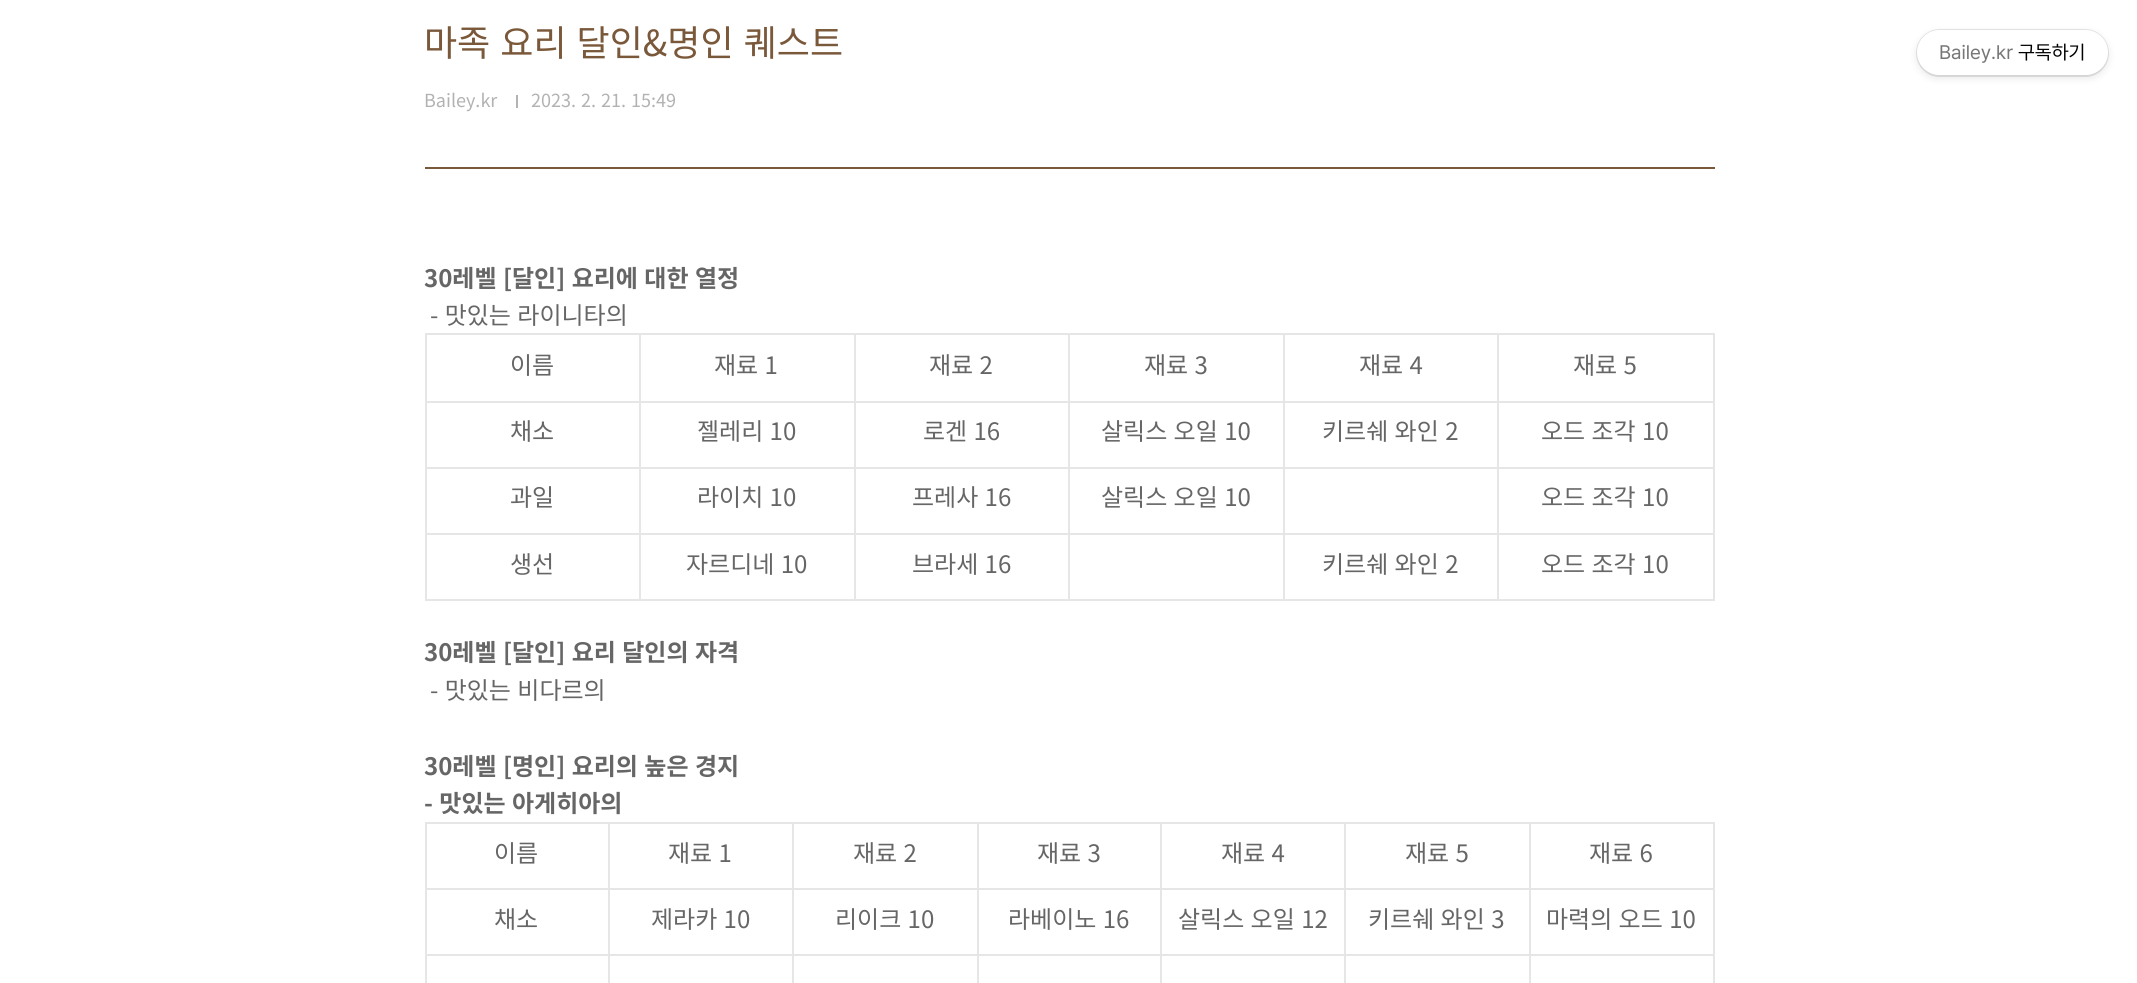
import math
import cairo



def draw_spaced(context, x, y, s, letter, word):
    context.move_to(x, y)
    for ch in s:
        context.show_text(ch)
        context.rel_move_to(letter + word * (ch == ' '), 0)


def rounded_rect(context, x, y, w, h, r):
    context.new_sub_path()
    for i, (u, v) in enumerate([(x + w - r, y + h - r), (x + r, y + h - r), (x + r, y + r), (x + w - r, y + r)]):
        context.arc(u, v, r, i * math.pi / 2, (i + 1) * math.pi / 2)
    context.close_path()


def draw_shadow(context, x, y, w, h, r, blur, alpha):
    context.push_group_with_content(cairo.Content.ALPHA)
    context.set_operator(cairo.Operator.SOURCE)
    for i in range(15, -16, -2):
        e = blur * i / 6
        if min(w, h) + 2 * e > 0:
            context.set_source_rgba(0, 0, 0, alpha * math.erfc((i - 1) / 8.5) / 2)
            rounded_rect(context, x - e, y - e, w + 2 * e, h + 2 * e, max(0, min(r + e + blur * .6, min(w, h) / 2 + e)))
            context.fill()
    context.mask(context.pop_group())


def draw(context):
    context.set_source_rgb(1, 1, 1)
    context.paint()
    context.set_source_rgb(122 / 255, 88 / 255, 58 / 255)
    context.rectangle(425, 167, 1290, 2)
    context.fill()
    context.set_source_rgb(179 / 255, 179 / 255, 179 / 255)
    context.rectangle(516, 95, 2, 13)
    context.fill()
    context.set_source_rgb(230 / 255, 230 / 255, 230 / 255)
    context.rectangle(425, 333, 1290, 2)
    context.fill()
    context.rectangle(1713, 333, 2, 267)
    context.fill()
    context.rectangle(425, 599, 1290, 2)
    context.fill()
    context.rectangle(425, 333, 2, 267)
    context.fill()
    context.rectangle(1497, 401, 218, 2)
    context.fill()
    context.rectangle(1497, 467, 218, 2)
    context.fill()
    context.rectangle(1497, 533, 218, 2)
    context.fill()
    context.rectangle(1497, 533, 2, 67)
    context.fill()
    context.rectangle(1283, 533, 216, 2)
    context.fill()
    context.rectangle(1497, 467, 2, 67)
    context.fill()
    context.rectangle(1283, 467, 216, 2)
    context.fill()
    context.rectangle(1497, 401, 2, 67)
    context.fill()
    context.rectangle(1283, 401, 216, 2)
    context.fill()
    context.rectangle(1283, 533, 2, 67)
    context.fill()
    context.rectangle(1068, 533, 216, 2)
    context.fill()
    context.rectangle(1283, 467, 2, 67)
    context.fill()
    context.rectangle(1068, 467, 216, 2)
    context.fill()
    context.rectangle(1283, 401, 2, 67)
    context.fill()
    context.rectangle(1068, 401, 216, 2)
    context.fill()
    context.rectangle(1068, 533, 2, 67)
    context.fill()
    context.rectangle(854, 533, 216, 2)
    context.fill()
    context.rectangle(1068, 467, 2, 67)
    context.fill()
    context.rectangle(854, 467, 216, 2)
    context.fill()
    context.rectangle(1068, 401, 2, 67)
    context.fill()
    context.rectangle(854, 401, 216, 2)
    context.fill()
    context.rectangle(854, 533, 2, 67)
    context.fill()
    context.rectangle(639, 533, 216, 2)
    context.fill()
    context.rectangle(854, 467, 2, 67)
    context.fill()
    context.rectangle(639, 467, 216, 2)
    context.fill()
    context.rectangle(854, 401, 2, 67)
    context.fill()
    context.rectangle(639, 401, 216, 2)
    context.fill()
    context.rectangle(639, 533, 2, 67)
    context.fill()
    context.rectangle(425, 533, 216, 2)
    context.fill()
    context.rectangle(639, 467, 2, 67)
    context.fill()
    context.rectangle(425, 467, 216, 2)
    context.fill()
    context.rectangle(639, 401, 2, 67)
    context.fill()
    context.rectangle(425, 401, 216, 2)
    context.fill()
    context.rectangle(639, 333, 2, 69)
    context.fill()
    context.rectangle(854, 333, 2, 69)
    context.fill()
    context.rectangle(1068, 333, 2, 69)
    context.fill()
    context.rectangle(1283, 333, 2, 69)
    context.fill()
    context.rectangle(1497, 333, 2, 69)
    context.fill()
    context.rectangle(425, 822, 1290, 2)
    context.fill()
    context.rectangle(1713, 822, 2, 161)
    context.fill()
    context.rectangle(425, 822, 2, 161)
    context.fill()
    context.rectangle(1529, 888, 186, 2)
    context.fill()
    context.rectangle(1529, 954, 186, 2)
    context.fill()
    context.rectangle(1529, 954, 2, 29)
    context.fill()
    context.rectangle(1344, 954, 186, 2)
    context.fill()
    context.rectangle(1529, 888, 2, 68)
    context.fill()
    context.rectangle(1344, 888, 186, 2)
    context.fill()
    context.rectangle(1344, 954, 2, 29)
    context.fill()
    context.rectangle(1160, 954, 186, 2)
    context.fill()
    context.rectangle(1344, 888, 2, 68)
    context.fill()
    context.rectangle(1160, 888, 186, 2)
    context.fill()
    context.rectangle(1160, 954, 2, 29)
    context.fill()
    context.rectangle(977, 954, 184, 2)
    context.fill()
    context.rectangle(1160, 888, 2, 68)
    context.fill()
    context.rectangle(977, 888, 184, 2)
    context.fill()
    context.rectangle(977, 954, 2, 29)
    context.fill()
    context.rectangle(792, 954, 186, 2)
    context.fill()
    context.rectangle(977, 888, 2, 68)
    context.fill()
    context.rectangle(792, 888, 186, 2)
    context.fill()
    context.rectangle(792, 954, 2, 29)
    context.fill()
    context.rectangle(608, 954, 186, 2)
    context.fill()
    context.rectangle(792, 888, 2, 68)
    context.fill()
    context.rectangle(608, 888, 186, 2)
    context.fill()
    context.rectangle(608, 954, 2, 29)
    context.fill()
    context.rectangle(425, 954, 184, 2)
    context.fill()
    context.rectangle(608, 888, 2, 68)
    context.fill()
    context.rectangle(425, 888, 184, 2)
    context.fill()
    context.rectangle(608, 822, 2, 68)
    context.fill()
    context.rectangle(792, 822, 2, 68)
    context.fill()
    context.rectangle(977, 822, 2, 68)
    context.fill()
    context.rectangle(1160, 822, 2, 68)
    context.fill()
    context.rectangle(1344, 822, 2, 68)
    context.fill()
    context.rectangle(1529, 822, 2, 68)
    context.fill()
    context.set_source_rgb(0, 0, 0)
    draw_shadow(context, 1917, 33, 191, 45, 22.5, 4, 0.1)
    rounded_rect(context, 1917, 30, 191, 46, 23)
    context.set_source_rgba(0, 0, 0, 0.1)
    context.stroke()
    context.set_source_rgb(1, 1, 1)
    rounded_rect(context, 1917, 30, 191, 45, 22.5)
    context.fill()
    context.select_font_face("Noto Sans KR")
    context.set_font_size(36)
    context.set_source_rgb(122 / 255, 88 / 255, 58 / 255)
    draw_spaced(context, 424, 56, "마족 요리 달인&명인 퀘스트", 0, 2)
    context.set_font_size(18)
    context.set_source_rgb(178 / 255, 178 / 255, 178 / 255)
    context.move_to(424, 107)
    context.show_text("Bailey.kr")
    draw_spaced(context, 531, 107, "2023. 2. 21. 15:49", 0, 1)
    context.select_font_face("Noto Sans KR", cairo.FontSlant.NORMAL, cairo.FontWeight.BOLD)
    context.set_font_size(24)
    context.set_source_rgb(102 / 255, 102 / 255, 102 / 255)
    draw_spaced(context, 424, 287, "30레벨 [달인] 요리에 대한 열정", 0, 1)
    context.select_font_face("Noto Sans KR")
    draw_spaced(context, 430, 324, "- 맛있는 라이니타의", 0, 1)
    context.move_to(510, 374)
    context.show_text("이름")
    draw_spaced(context, 714, 374, "재료 1", 0, 1)
    draw_spaced(context, 929, 374, "재료 2", 0, 1)
    draw_spaced(context, 1144, 374, "재료 3", 0, 1)
    draw_spaced(context, 1359, 374, "재료 4", 0, 1)
    draw_spaced(context, 1573, 374, "재료 5", 0, 1)
    context.move_to(510, 440)
    context.show_text("채소")
    draw_spaced(context, 697, 440, "젤레리 10", 0, 1)
    draw_spaced(context, 923, 440, "로겐 16", 0, 1)
    draw_spaced(context, 1101, 440, "살릭스 오일 10", 0, 1)
    draw_spaced(context, 1322, 440, "키르쉐 와인 2", 0, 1)
    draw_spaced(context, 1541, 440, "오드 조각 10", 0, 1)
    context.move_to(510, 506)
    context.show_text("과일")
    draw_spaced(context, 697, 506, "라이치 10", 0, 1)
    draw_spaced(context, 912, 506, "프레사 16", 0, 1)
    draw_spaced(context, 1101, 506, "살릭스 오일 10", 0, 1)
    draw_spaced(context, 1541, 506, "오드 조각 10", 0, 1)
    context.move_to(510, 573)
    context.show_text("생선")
    draw_spaced(context, 686, 573, "자르디네 10", 0, 1)
    draw_spaced(context, 912, 573, "브라세 16", 0, 1)
    draw_spaced(context, 1322, 573, "키르쉐 와인 2", 0, 1)
    draw_spaced(context, 1541, 573, "오드 조각 10", 0, 1)
    context.select_font_face("Noto Sans KR", cairo.FontSlant.NORMAL, cairo.FontWeight.BOLD)
    draw_spaced(context, 424, 661, "30레벨 [달인] 요리 달인의 자격", 0, 1)
    context.select_font_face("Noto Sans KR")
    draw_spaced(context, 430, 699, "- 맛있는 비다르의", 0, 1)
    context.select_font_face("Noto Sans KR", cairo.FontSlant.NORMAL, cairo.FontWeight.BOLD)
    draw_spaced(context, 424, 775, "30레벨 [명인] 요리의 높은 경지", 0, 1)
    draw_spaced(context, 424, 812, "- 맛있는 아게히아의", 0, 1)
    context.select_font_face("Noto Sans KR")
    context.move_to(494, 862)
    context.show_text("이름")
    draw_spaced(context, 668, 862, "재료 1", 0, 1)
    draw_spaced(context, 853, 862, "재료 2", 0, 1)
    draw_spaced(context, 1037, 862, "재료 3", 0, 1)
    draw_spaced(context, 1221, 862, "재료 4", 0, 1)
    draw_spaced(context, 1405, 862, "재료 5", 0, 1)
    draw_spaced(context, 1589, 862, "재료 6", 0, 1)
    context.move_to(494, 928)
    context.show_text("채소")
    draw_spaced(context, 651, 928, "제라카 10", 0, 1)
    draw_spaced(context, 835, 928, "리이크 10", 0, 1)
    draw_spaced(context, 1008, 928, "라베이노 16", 0, 1)
    draw_spaced(context, 1178, 928, "살릭스 오일 12", 0, 1)
    draw_spaced(context, 1368, 928, "키르쉐 와인 3", 0, 1)
    draw_spaced(context, 1546, 928, "마력의 오드 10", 0, 1)
    context.select_font_face("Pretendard")
    context.set_font_size(19.5)
    context.set_source_rgb(119 / 255, 119 / 255, 119 / 255)
    context.move_to(1939, 59)
    context.show_text("Bailey.kr")
    context.set_source_rgb(0, 0, 0)
    context.move_to(2018, 59)
    context.show_text("구독하기")


surface = cairo.ImageSurface(cairo.Format.RGB24, 2137, 983)
context = cairo.Context(surface)
options = cairo.FontOptions()
options.set_hint_metrics(cairo.HintMetrics.OFF)
options.set_hint_style(cairo.HintStyle.NONE)
context.set_font_options(options)
context.set_miter_limit(4)
draw(context)
surface.write_to_png("out.png")
